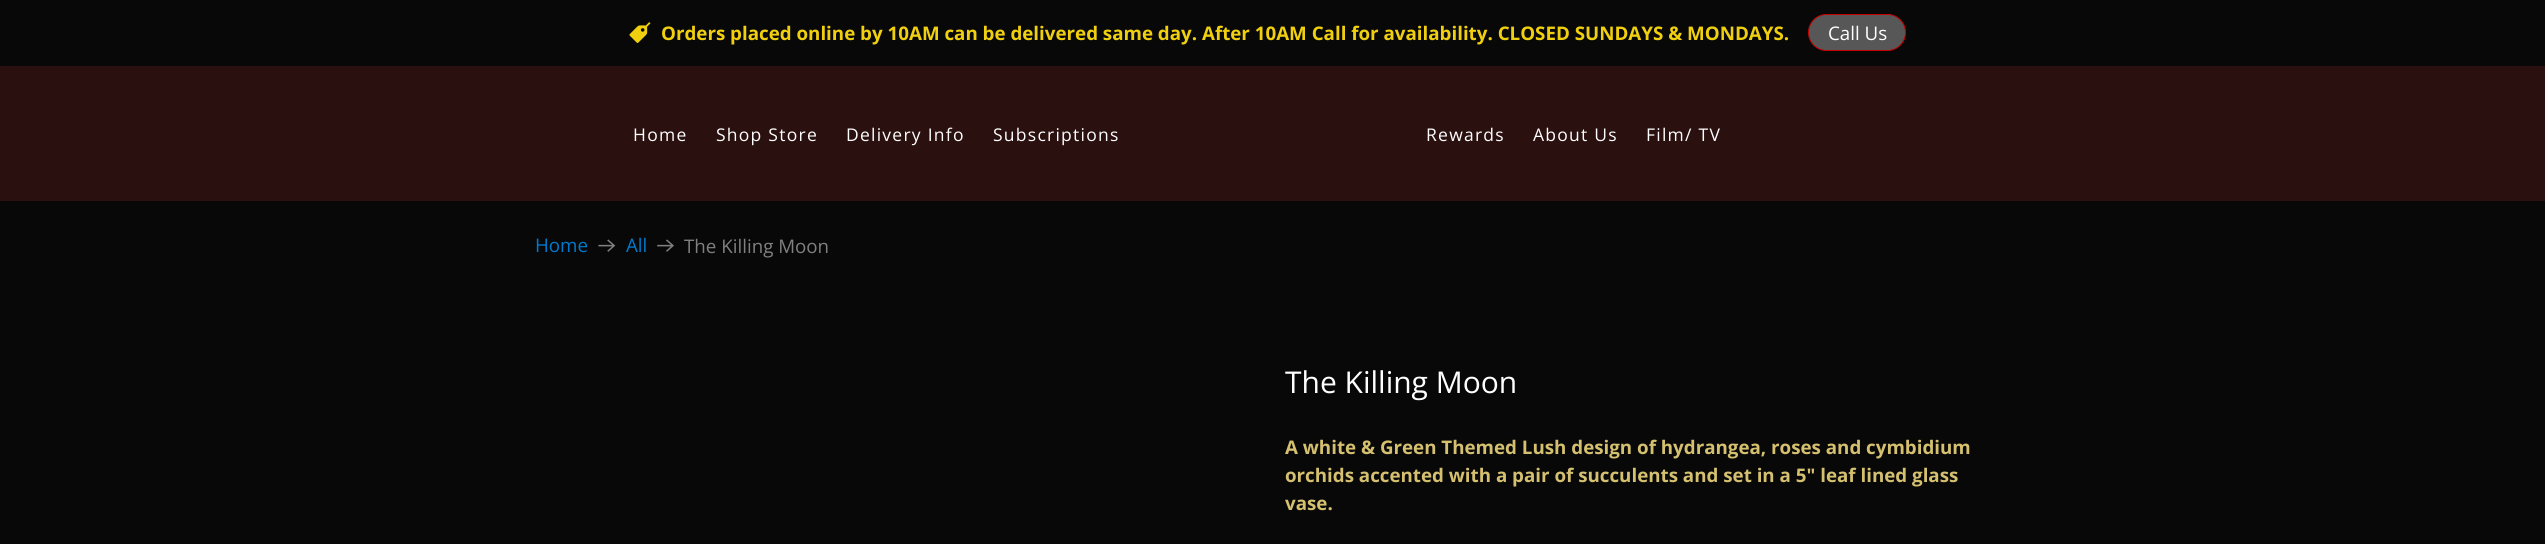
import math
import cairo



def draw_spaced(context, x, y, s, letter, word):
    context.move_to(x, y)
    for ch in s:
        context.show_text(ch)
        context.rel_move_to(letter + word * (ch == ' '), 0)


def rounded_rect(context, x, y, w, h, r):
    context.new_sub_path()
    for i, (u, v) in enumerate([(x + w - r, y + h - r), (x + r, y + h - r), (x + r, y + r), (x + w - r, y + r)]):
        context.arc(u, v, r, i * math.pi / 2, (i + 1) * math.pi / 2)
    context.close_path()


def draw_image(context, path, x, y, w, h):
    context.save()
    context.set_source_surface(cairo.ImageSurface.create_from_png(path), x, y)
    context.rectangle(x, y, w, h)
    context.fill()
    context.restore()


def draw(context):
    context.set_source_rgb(8 / 255, 8 / 255, 8 / 255)
    context.paint()
    draw_image(context, "images/1.png", 629, 22, 22, 21)
    context.set_source_rgb(88 / 255, 87 / 255, 87 / 255)
    rounded_rect(context, 1808.5, 14.5, 97, 36, 18)
    context.fill_preserve()
    context.set_source_rgb(199 / 255, 0, 0)
    context.set_line_width(1)
    context.stroke()
    context.set_source_rgb(43 / 255, 16 / 255, 16 / 255)
    context.rectangle(0, 66, 2545, 135)
    context.fill()
    draw_image(context, "images/2.png", 598, 239, 18, 13)
    draw_image(context, "images/3.png", 657, 239, 17, 13)
    context.select_font_face("Open Sans", cairo.FontSlant.NORMAL, cairo.FontWeight.BOLD)
    context.set_font_size(18.75)
    context.set_source_rgb(240 / 255, 208 / 255, 14 / 255)
    context.move_to(661, 40)
    context.show_text("Orders placed online by 10AM can be delivered same day. After 10AM Call for availability. CLOSED SUNDAYS & MONDAYS.")
    context.select_font_face("Open Sans")
    context.set_source_rgb(1, 1, 1)
    context.move_to(1828, 40)
    context.show_text("Call Us")
    context.set_font_size(17.5)
    draw_spaced(context, 633, 141, "Home", 1.25, 0)
    draw_spaced(context, 716, 141, "Shop Store", 1.25, 0)
    draw_spaced(context, 846, 141, "Delivery Info", 1.25, 0)
    draw_spaced(context, 993, 141, "Subscriptions", 1.25, 0)
    draw_spaced(context, 1426, 141, "Rewards", 1.25, 0)
    draw_spaced(context, 1533, 141, "About Us", 1.25, 0)
    draw_spaced(context, 1646, 141, "Film/ TV", 1.25, 0)
    context.set_font_size(18.75)
    context.set_source_rgb(0, 122 / 255, 206 / 255)
    context.move_to(535, 252)
    context.show_text("Home")
    context.move_to(626, 252)
    context.show_text("All")
    context.set_source_rgb(128 / 255, 128 / 255, 128 / 255)
    context.move_to(684, 253)
    context.show_text("The Killing Moon")
    context.set_font_size(30)
    context.set_source_rgb(1, 1, 1)
    context.move_to(1285, 393)
    context.show_text("The Killing Moon")
    context.select_font_face("Open Sans", cairo.FontSlant.NORMAL, cairo.FontWeight.BOLD)
    context.set_font_size(18.75)
    context.set_source_rgb(212 / 255, 192 / 255, 111 / 255)
    context.move_to(1285, 454)
    context.show_text("A white & Green Themed Lush design of hydrangea, roses and cymbidium")
    context.move_to(1285, 482)
    context.show_text("orchids accented with a pair of succulents and set in a 5\" leaf lined glass")
    context.move_to(1285, 510)
    context.show_text("vase.")


surface = cairo.ImageSurface(cairo.Format.RGB24, 2545, 544)
context = cairo.Context(surface)
options = cairo.FontOptions()
options.set_hint_metrics(cairo.HintMetrics.OFF)
options.set_hint_style(cairo.HintStyle.NONE)
context.set_font_options(options)
context.set_miter_limit(4)
draw(context)
surface.write_to_png("out.png")
